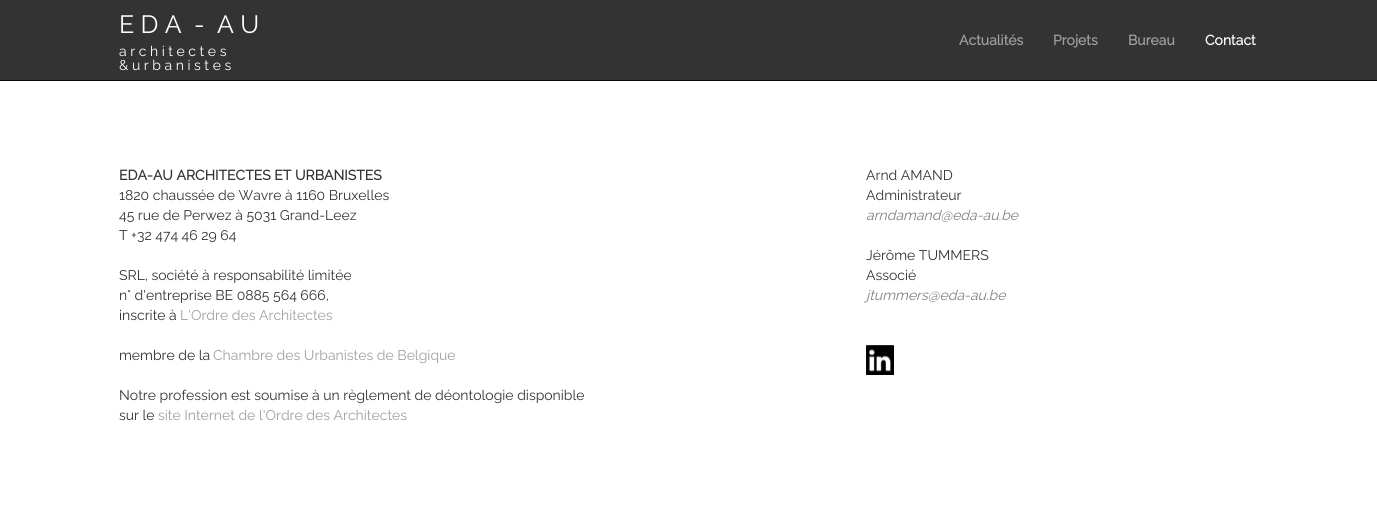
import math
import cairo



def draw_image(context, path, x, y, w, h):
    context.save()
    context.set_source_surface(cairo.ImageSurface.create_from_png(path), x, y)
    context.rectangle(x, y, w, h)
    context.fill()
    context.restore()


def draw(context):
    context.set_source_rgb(1, 1, 1)
    context.paint()
    context.set_source_rgb(51 / 255, 51 / 255, 51 / 255)
    context.rectangle(0, 0, 1377, 80)
    context.fill()
    context.set_source_rgb(8 / 255, 8 / 255, 8 / 255)
    context.rectangle(0, 80, 1377, 1)
    context.fill()
    draw_image(context, "images/1.png", 866, 345, 28, 30)
    context.select_font_face("Raleway Thin")
    context.set_font_size(25)
    context.set_source_rgb(1, 1, 1)
    context.move_to(119, 33)
    context.show_text("E D A")
    context.move_to(194, 33)
    context.show_text("-")
    context.move_to(217, 33)
    context.show_text("A U")
    context.set_font_size(14)
    context.move_to(119, 56)
    context.show_text("a r c h i t e c t e s")
    context.move_to(119, 70)
    context.show_text("& u r b a n i s t e s")
    context.select_font_face("Raleway", cairo.FontSlant.NORMAL, cairo.FontWeight.BOLD)
    context.set_source_rgb(160 / 255, 160 / 255, 160 / 255)
    context.move_to(959, 45)
    context.show_text("Actualités")
    context.move_to(1053, 45)
    context.show_text("Projets")
    context.move_to(1128, 45)
    context.show_text("Bureau")
    context.set_source_rgb(1, 1, 1)
    context.move_to(1205, 45)
    context.show_text("Contact")
    context.set_source_rgb(51 / 255, 51 / 255, 51 / 255)
    context.move_to(119, 180)
    context.show_text("EDA-AU ARCHITECTES ET URBANISTES")
    context.select_font_face("Raleway Thin")
    context.move_to(119, 200)
    context.show_text("1820 chaussée de Wavre à 1160 Bruxelles")
    context.move_to(119, 220)
    context.show_text("45 rue de Perwez à 5031 Grand-Leez")
    context.move_to(119, 240)
    context.show_text("T +32 474 46 29 64")
    context.move_to(119, 280)
    context.show_text("SRL, société à responsabilité limitée")
    context.move_to(119, 300)
    context.show_text("n° d'entreprise BE 0885 564 666,")
    context.move_to(119, 320)
    context.show_text("inscrite à")
    context.set_source_rgb(160 / 255, 160 / 255, 160 / 255)
    context.move_to(180, 320)
    context.show_text("L'Ordre des Architectes")
    context.set_source_rgb(51 / 255, 51 / 255, 51 / 255)
    context.move_to(119, 360)
    context.show_text("membre de la")
    context.set_source_rgb(160 / 255, 160 / 255, 160 / 255)
    context.move_to(213, 360)
    context.show_text("Chambre des Urbanistes de Belgique")
    context.set_source_rgb(51 / 255, 51 / 255, 51 / 255)
    context.move_to(119, 400)
    context.show_text("Notre profession est soumise à un règlement de déontologie disponible")
    context.move_to(119, 420)
    context.show_text("sur le")
    context.set_source_rgb(160 / 255, 160 / 255, 160 / 255)
    context.move_to(158, 420)
    context.show_text("site Internet de l'Ordre des Architectes")
    context.set_source_rgb(51 / 255, 51 / 255, 51 / 255)
    context.move_to(866, 180)
    context.show_text("Arnd AMAND")
    context.move_to(866, 200)
    context.show_text("Administrateur")
    context.select_font_face("Raleway Thin", cairo.FontSlant.ITALIC)
    context.set_source_rgb(128 / 255, 128 / 255, 128 / 255)
    context.move_to(866, 220)
    context.show_text("arndamand@eda-au.be")
    context.select_font_face("Raleway Thin")
    context.set_source_rgb(51 / 255, 51 / 255, 51 / 255)
    context.move_to(866, 260)
    context.show_text("Jérôme TUMMERS")
    context.move_to(866, 280)
    context.show_text("Associé")
    context.select_font_face("Raleway Thin", cairo.FontSlant.ITALIC)
    context.set_source_rgb(128 / 255, 128 / 255, 128 / 255)
    context.move_to(866, 300)
    context.show_text("jtummers@eda-au.be")


surface = cairo.ImageSurface(cairo.Format.RGB24, 1377, 523)
context = cairo.Context(surface)
options = cairo.FontOptions()
options.set_hint_metrics(cairo.HintMetrics.OFF)
options.set_hint_style(cairo.HintStyle.NONE)
context.set_font_options(options)
context.set_miter_limit(4)
draw(context)
surface.write_to_png("out.png")
